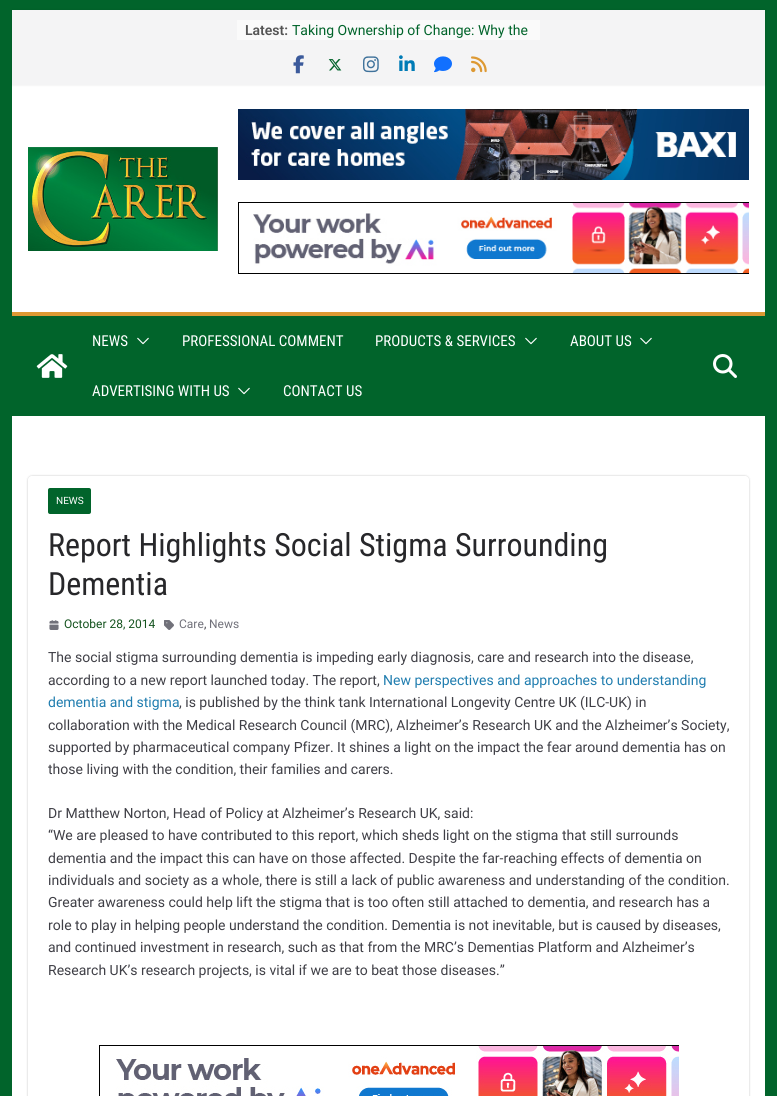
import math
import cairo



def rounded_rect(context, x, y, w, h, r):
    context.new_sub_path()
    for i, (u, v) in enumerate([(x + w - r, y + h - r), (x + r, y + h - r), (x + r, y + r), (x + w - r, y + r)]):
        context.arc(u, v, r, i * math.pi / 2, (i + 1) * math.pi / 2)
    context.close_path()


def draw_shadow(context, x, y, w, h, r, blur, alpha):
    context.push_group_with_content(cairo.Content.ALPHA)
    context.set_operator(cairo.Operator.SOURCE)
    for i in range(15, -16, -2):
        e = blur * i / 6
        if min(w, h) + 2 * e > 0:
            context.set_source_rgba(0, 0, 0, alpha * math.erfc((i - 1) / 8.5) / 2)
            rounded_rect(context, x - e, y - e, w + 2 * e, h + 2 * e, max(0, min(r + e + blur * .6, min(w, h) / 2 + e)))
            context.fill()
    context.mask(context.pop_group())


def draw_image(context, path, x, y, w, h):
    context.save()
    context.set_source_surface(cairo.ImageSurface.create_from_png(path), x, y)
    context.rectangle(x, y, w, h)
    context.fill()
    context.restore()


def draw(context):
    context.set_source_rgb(1 / 255, 100 / 255, 43 / 255)
    context.paint()
    context.set_source_rgb(1, 1, 1)
    context.rectangle(12, 85, 753, 227)
    context.fill()
    context.set_source_rgb(0, 0, 0)
    draw_shadow(context, 12, 10, 753, 75, 0, 1, 0.1)
    context.set_source_rgb(244 / 255, 244 / 255, 245 / 255)
    context.rectangle(12, 10, 753, 75)
    context.fill()
    context.set_source_rgb(250 / 255, 250 / 255, 250 / 255)
    context.rectangle(237, 20, 303, 20)
    context.fill()
    draw_image(context, "images/1.png", 293, 55, 11, 19)
    draw_image(context, "images/2.png", 328, 59, 14, 12)
    draw_image(context, "images/3.png", 363, 56, 16, 17)
    draw_image(context, "images/4.png", 399, 55, 16, 16)
    draw_image(context, "images/5.png", 434, 56, 18, 17)
    draw_image(context, "images/6.png", 471, 56, 16, 17)
    draw_image(context, "images/7.png", 28, 147, 190, 104)
    draw_image(context, "images/8.png", 238, 109, 511, 71)
    context.save()
    context.rectangle(238, 202, 511, 86)
    context.clip()
    context.rectangle(238.5, 202.5, 512, 71)
    context.set_source_rgb(0, 0, 0)
    context.set_line_width(1)
    context.stroke()
    context.restore()
    draw_image(context, "images/9.png", 253, 203, 496, 70)
    context.set_source_rgb(221 / 255, 153 / 255, 51 / 255)
    context.rectangle(12, 312, 753, 4)
    context.fill()
    draw_image(context, "images/10.png", 36, 354, 32, 24)
    draw_image(context, "images/11.png", 137, 337, 12, 8)
    draw_image(context, "images/11.png", 525, 337, 12, 8)
    draw_image(context, "images/11.png", 640, 337, 12, 8)
    draw_image(context, "images/11.png", 238, 387, 12, 8)
    draw_image(context, "images/12.png", 713, 354, 24, 24)
    context.set_source_rgb(1, 1, 1)
    context.rectangle(12, 416, 753, 680)
    context.fill()
    context.save()
    context.set_fill_rule(cairo.FillRule.EVEN_ODD)
    context.new_path()
    context.move_to(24, 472)
    context.line_to(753, 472)
    context.line_to(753, 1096)
    context.line_to(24, 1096)
    context.close_path()
    context.move_to(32, 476)
    context.line_to(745, 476)
    context.curve_to(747, 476, 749, 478, 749, 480)
    context.line_to(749, 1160)
    context.curve_to(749, 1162, 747, 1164, 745, 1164)
    context.line_to(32, 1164)
    context.curve_to(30, 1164, 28, 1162, 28, 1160)
    context.line_to(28, 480)
    context.curve_to(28, 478, 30, 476, 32, 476)
    context.close_path()
    context.clip()
    context.set_source_rgb(0, 0, 0)
    draw_shadow(context, 28, 476, 721, 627, 4, 1, 0.24)
    context.restore()
    context.set_source_rgb(1 / 255, 100 / 255, 43 / 255)
    rounded_rect(context, 48, 488, 43, 26, 2)
    context.fill()
    draw_image(context, "images/13.png", 49, 620, 10, 10)
    draw_image(context, "images/14.png", 164, 620, 10, 10)
    context.save()
    context.rectangle(99, 1002, 580, 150)
    context.clip()
    context.rectangle(99.5, 1045.5, 581, 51)
    context.set_source_rgb(0, 0, 0)
    context.set_line_width(1)
    context.stroke()
    context.restore()
    draw_image(context, "images/15.png", 116, 1046, 563, 50)
    context.select_font_face("Roboto SemiBold")
    context.set_font_size(14)
    context.set_source_rgb(85 / 255, 85 / 255, 85 / 255)
    context.move_to(245, 35)
    context.show_text("Latest:")
    context.select_font_face("Roboto")
    context.set_source_rgb(1 / 255, 100 / 255, 43 / 255)
    context.move_to(292, 35)
    context.show_text("Taking Ownership of Change: Why the")
    context.select_font_face("Roboto Condensed")
    context.set_font_size(15)
    context.set_source_rgb(1, 1, 1)
    context.move_to(92, 346)
    context.show_text("NEWS")
    context.move_to(182, 346)
    context.show_text("PROFESSIONAL COMMENT")
    context.move_to(375, 346)
    context.show_text("PRODUCTS & SERVICES")
    context.move_to(570, 346)
    context.show_text("ABOUT US")
    context.move_to(92, 396)
    context.show_text("ADVERTISING WITH US")
    context.move_to(283, 396)
    context.show_text("CONTACT US")
    context.select_font_face("Roboto")
    context.set_font_size(10)
    context.move_to(56, 504)
    context.show_text("NEWS")
    context.select_font_face("Roboto Condensed")
    context.set_font_size(32)
    context.set_source_rgb(39 / 255, 39 / 255, 42 / 255)
    context.move_to(48, 556)
    context.show_text("Report Highlights Social Stigma Surrounding")
    context.move_to(48, 595)
    context.show_text("Dementia")
    context.select_font_face("Roboto")
    context.set_font_size(12)
    context.set_source_rgb(20 / 255, 83 / 255, 30 / 255)
    context.move_to(64, 628)
    context.show_text("October 28, 2014")
    context.set_source_rgb(113 / 255, 113 / 255, 122 / 255)
    context.move_to(179, 628)
    context.show_text("Care")
    context.set_source_rgb(63 / 255, 63 / 255, 70 / 255)
    context.move_to(204, 628)
    context.show_text(",")
    context.set_source_rgb(113 / 255, 113 / 255, 122 / 255)
    context.move_to(209, 628)
    context.show_text("News")
    context.set_font_size(14)
    context.set_source_rgb(63 / 255, 63 / 255, 70 / 255)
    context.move_to(48, 662)
    context.show_text("The social stigma surrounding dementia is impeding early diagnosis, care and research into the disease,")
    context.move_to(48, 685)
    context.show_text("according to a new report launched today. The report,")
    context.set_source_rgb(32 / 255, 125 / 255, 175 / 255)
    context.move_to(383, 685)
    context.show_text("New perspectives and approaches to understanding")
    context.move_to(48, 707)
    context.show_text("dementia and stigma")
    context.set_source_rgb(63 / 255, 63 / 255, 70 / 255)
    context.move_to(179, 707)
    context.show_text(", is published by the think tank International Longevity Centre UK (ILC-UK) in")
    context.move_to(48, 730)
    context.show_text("collaboration with the Medical Research Council (MRC), Alzheimer’s Research UK and the Alzheimer’s Society,")
    context.move_to(48, 752)
    context.show_text("supported by pharmaceutical company Pfizer. It shines a light on the impact the fear around dementia has on")
    context.move_to(48, 774)
    context.show_text("those living with the condition, their families and carers.")
    context.move_to(48, 818)
    context.show_text("Dr Matthew Norton, Head of Policy at Alzheimer’s Research UK, said:")
    context.move_to(48, 840)
    context.show_text("“We are pleased to have contributed to this report, which sheds light on the stigma that still surrounds")
    context.move_to(48, 863)
    context.show_text("dementia and the impact this can have on those affected. Despite the far-reaching effects of dementia on")
    context.move_to(48, 885)
    context.show_text("individuals and society as a whole, there is still a lack of public awareness and understanding of the condition.")
    context.move_to(48, 907)
    context.show_text("Greater awareness could help lift the stigma that is too often still attached to dementia, and research has a")
    context.move_to(48, 930)
    context.show_text("role to play in helping people understand the condition. Dementia is not inevitable, but is caused by diseases,")
    context.move_to(48, 952)
    context.show_text("and continued investment in research, such as that from the MRC’s Dementias Platform and Alzheimer’s")
    context.move_to(48, 975)
    context.show_text("Research UK’s research projects, is vital if we are to beat those diseases.”")


surface = cairo.ImageSurface(cairo.Format.RGB24, 777, 1096)
context = cairo.Context(surface)
options = cairo.FontOptions()
options.set_hint_metrics(cairo.HintMetrics.OFF)
options.set_hint_style(cairo.HintStyle.NONE)
context.set_font_options(options)
context.set_miter_limit(4)
draw(context)
surface.write_to_png("out.png")
